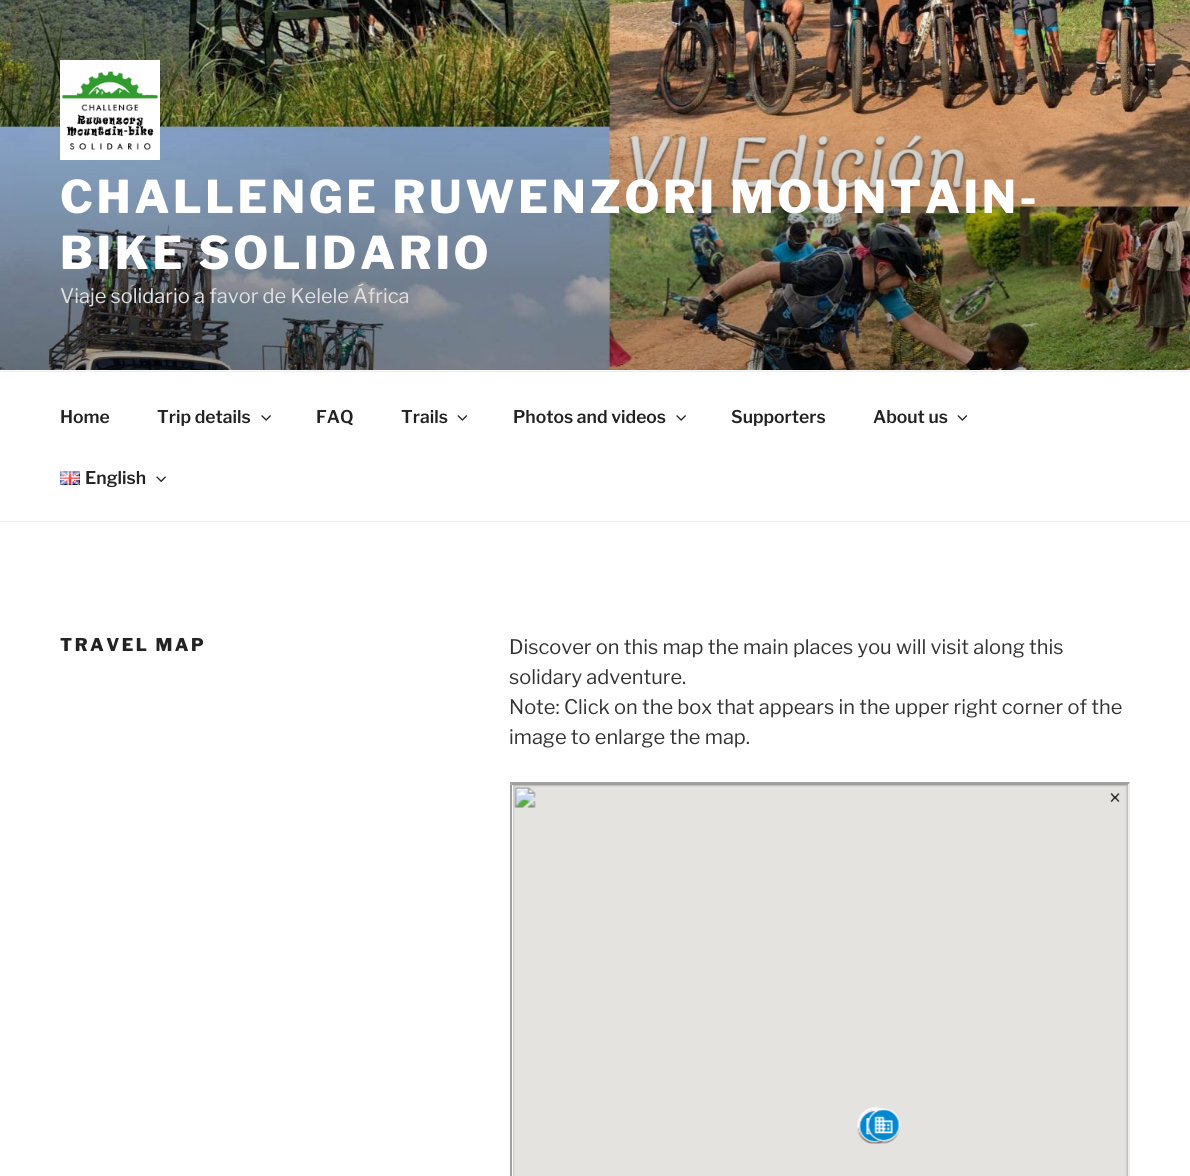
import math
import cairo



def draw_spaced(context, x, y, s, letter, word):
    context.move_to(x, y)
    for ch in s:
        context.show_text(ch)
        context.rel_move_to(letter + word * (ch == ' '), 0)


def draw_image(context, path, x, y, w, h):
    context.save()
    context.set_source_surface(cairo.ImageSurface.create_from_png(path), x, y)
    context.rectangle(x, y, w, h)
    context.fill()
    context.restore()


def draw(context):
    context.set_source_rgb(1, 1, 1)
    context.paint()
    context.set_source_rgb(250 / 255, 250 / 255, 250 / 255)
    context.rectangle(0, 370, 1190, 1)
    context.fill()
    draw_image(context, "images/1.png", 0, 0, 1190, 370)
    draw_image(context, "images/2.png", 60, 60, 100, 100)
    context.set_source_rgb(238 / 255, 238 / 255, 238 / 255)
    context.rectangle(0, 371, 1190, 1)
    context.fill()
    context.rectangle(0, 521, 1190, 1)
    context.fill()
    draw_image(context, "images/3.png", 261, 415, 10, 6)
    draw_image(context, "images/4.png", 457, 415, 11, 6)
    draw_image(context, "images/3.png", 676, 415, 10, 6)
    draw_image(context, "images/4.png", 957, 415, 11, 6)
    draw_image(context, "images/5.png", 60, 471, 20, 14)
    draw_image(context, "images/6.png", 156, 476, 10, 6)
    context.set_source_rgb(159 / 255, 159 / 255, 159 / 255)
    context.new_path()
    context.move_to(510, 782)
    context.line_to(1130, 782)
    context.line_to(1128, 785)
    context.line_to(512, 785)
    context.close_path()
    context.fill()
    context.new_path()
    context.move_to(510, 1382)
    context.line_to(510, 782)
    context.line_to(512, 785)
    context.line_to(512, 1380)
    context.close_path()
    context.fill()
    draw_image(context, "images/7.png", 512, 785, 616, 391)
    context.set_source_rgb(238 / 255, 238 / 255, 238 / 255)
    context.new_path()
    context.move_to(1130, 782)
    context.line_to(1130, 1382)
    context.line_to(1128, 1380)
    context.line_to(1128, 785)
    context.close_path()
    context.fill()
    context.select_font_face("Libre Franklin ExtraBold")
    context.set_font_size(45)
    context.set_source_rgb(1, 1, 1)
    draw_spaced(context, 60, 213, "CHALLENGE RUWENZORI MOUNTAIN-", 3.6, 0)
    draw_spaced(context, 60, 269, "BIKE SOLIDARIO", 3.6, 0)
    context.select_font_face("Libre Franklin")
    context.set_font_size(20)
    context.set_source_rgb(224 / 255, 225 / 255, 226 / 255)
    context.move_to(60, 303)
    context.show_text("Viaje solidario a favor de Kelele África")
    context.select_font_face("Libre Franklin SemiBold")
    context.set_font_size(17.5)
    context.set_source_rgb(34 / 255, 34 / 255, 34 / 255)
    context.move_to(60, 423)
    context.show_text("Home")
    context.move_to(157, 423)
    context.show_text("Trip details")
    context.move_to(316, 423)
    context.show_text("FAQ")
    context.move_to(401, 423)
    context.show_text("Trails")
    context.move_to(513, 423)
    context.show_text("Photos and videos")
    context.move_to(731, 423)
    context.show_text("Supporters")
    context.move_to(873, 423)
    context.show_text("About us")
    context.move_to(85, 484)
    context.show_text("English")
    context.select_font_face("Libre Franklin ExtraBold")
    draw_spaced(context, 60, 651, "TRAVEL MAP", 2.5, 0)
    context.select_font_face("Libre Franklin")
    context.set_font_size(20)
    context.set_source_rgb(51 / 255, 51 / 255, 51 / 255)
    context.move_to(509, 654)
    context.show_text("Discover on this map the main places you will visit along this")
    context.move_to(509, 684)
    context.show_text("solidary adventure.")
    context.move_to(509, 714)
    context.show_text("Note: Click on the box that appears in the upper right corner of the")
    context.move_to(509, 744)
    context.show_text("image to enlarge the map.")


surface = cairo.ImageSurface(cairo.Format.RGB24, 1190, 1176)
context = cairo.Context(surface)
options = cairo.FontOptions()
options.set_hint_metrics(cairo.HintMetrics.OFF)
options.set_hint_style(cairo.HintStyle.NONE)
context.set_font_options(options)
context.set_miter_limit(4)
draw(context)
surface.write_to_png("out.png")
